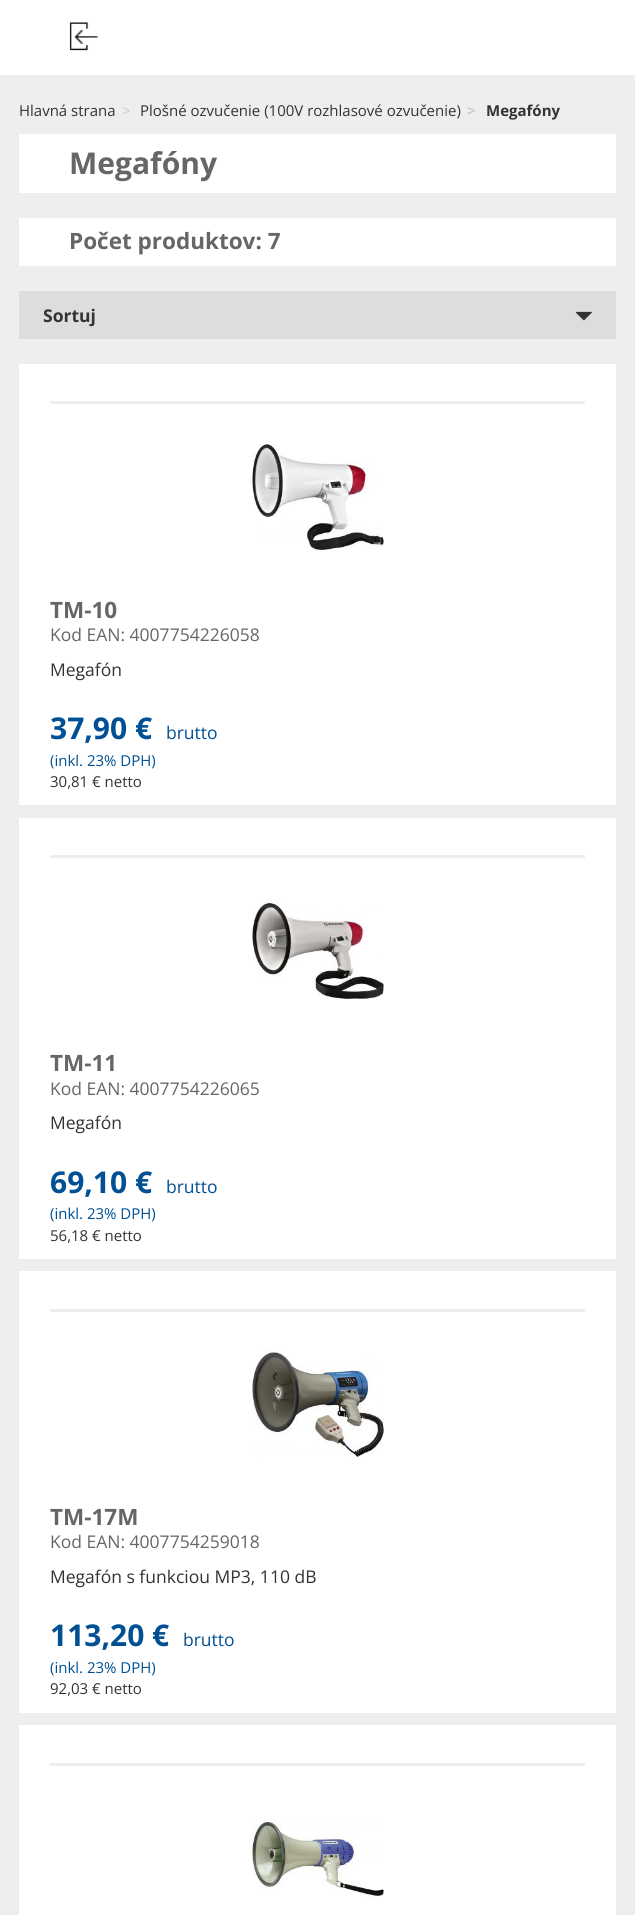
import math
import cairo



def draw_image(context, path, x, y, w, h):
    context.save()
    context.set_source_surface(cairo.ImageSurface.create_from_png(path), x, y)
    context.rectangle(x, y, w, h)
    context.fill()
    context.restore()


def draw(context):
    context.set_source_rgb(238 / 255, 238 / 255, 238 / 255)
    context.paint()
    context.set_source_rgb(1, 1, 1)
    context.rectangle(0, 0, 635, 75)
    context.fill()
    draw_image(context, "images/1.png", 69, 22, 29, 29)
    context.rectangle(19, 134, 597, 59)
    context.fill()
    context.rectangle(19, 218, 597, 48)
    context.fill()
    context.set_source_rgb(221 / 255, 221 / 255, 221 / 255)
    context.rectangle(19, 291, 597, 48)
    context.fill()
    draw_image(context, "images/2.png", 575, 311, 17, 10)
    context.set_source_rgb(1, 1, 1)
    context.rectangle(19, 364, 597, 441)
    context.fill()
    context.set_source_rgb(238 / 255, 238 / 255, 238 / 255)
    context.rectangle(50, 401, 535, 3)
    context.fill()
    draw_image(context, "images/3.png", 252, 443, 132, 109)
    context.set_source_rgb(1, 1, 1)
    context.rectangle(19, 818, 597, 441)
    context.fill()
    context.set_source_rgb(238 / 255, 238 / 255, 238 / 255)
    context.rectangle(50, 855, 535, 3)
    context.fill()
    draw_image(context, "images/4.png", 252, 901, 132, 99)
    context.set_source_rgb(1, 1, 1)
    context.rectangle(19, 1271, 597, 442)
    context.fill()
    context.set_source_rgb(238 / 255, 238 / 255, 238 / 255)
    context.rectangle(50, 1309, 535, 3)
    context.fill()
    draw_image(context, "images/5.png", 252, 1350, 132, 110)
    context.set_source_rgb(1, 1, 1)
    context.rectangle(19, 1725, 597, 190)
    context.fill()
    context.set_source_rgb(238 / 255, 238 / 255, 238 / 255)
    context.rectangle(50, 1763, 535, 3)
    context.fill()
    draw_image(context, "images/6.png", 252, 1819, 132, 79)
    context.select_font_face("Open Sans")
    context.set_font_size(15)
    context.set_source_rgb(51 / 255, 51 / 255, 51 / 255)
    context.move_to(19, 116)
    context.show_text("Hlavná strana")
    context.set_source_rgb(204 / 255, 204 / 255, 204 / 255)
    context.move_to(122, 116)
    context.show_text(">")
    context.set_source_rgb(51 / 255, 51 / 255, 51 / 255)
    context.move_to(140, 116)
    context.show_text("Plošné ozvučenie (100V rozhlasové ozvučenie)")
    context.select_font_face("Open Sans", cairo.FontSlant.NORMAL, cairo.FontWeight.BOLD)
    context.set_source_rgb(204 / 255, 204 / 255, 204 / 255)
    context.move_to(467, 116)
    context.show_text(">")
    context.set_source_rgb(51 / 255, 51 / 255, 51 / 255)
    context.move_to(486, 116)
    context.show_text("Megafóny")
    context.set_font_size(30)
    context.set_source_rgb(102 / 255, 102 / 255, 102 / 255)
    context.move_to(69, 174)
    context.show_text("Megafóny")
    context.set_font_size(22.5)
    context.move_to(69, 249)
    context.show_text("Počet produktov: 7")
    context.set_font_size(17.5)
    context.set_source_rgb(51 / 255, 51 / 255, 51 / 255)
    context.move_to(43, 322)
    context.show_text("Sortuj")
    context.set_font_size(22.5)
    context.set_source_rgb(102 / 255, 102 / 255, 102 / 255)
    context.move_to(50, 618)
    context.show_text("TM-10")
    context.select_font_face("Open Sans")
    context.set_font_size(17.5)
    context.move_to(50, 641)
    context.show_text("Kod EAN: 4007754226058")
    context.set_source_rgb(51 / 255, 51 / 255, 51 / 255)
    context.move_to(50, 676)
    context.show_text("Megafón")
    context.select_font_face("Open Sans", cairo.FontSlant.NORMAL, cairo.FontWeight.BOLD)
    context.set_font_size(30)
    context.set_source_rgb(0, 80 / 255, 147 / 255)
    context.move_to(50, 739)
    context.show_text("37,90 €")
    context.select_font_face("Open Sans")
    context.set_font_size(17.5)
    context.move_to(166, 739)
    context.show_text("brutto")
    context.set_font_size(15)
    context.move_to(50, 766)
    context.show_text("(inkl. 23% DPH)")
    context.set_source_rgb(51 / 255, 51 / 255, 51 / 255)
    context.move_to(50, 787)
    context.show_text("30,81 € netto")
    context.select_font_face("Open Sans", cairo.FontSlant.NORMAL, cairo.FontWeight.BOLD)
    context.set_font_size(22.5)
    context.set_source_rgb(102 / 255, 102 / 255, 102 / 255)
    context.move_to(50, 1071)
    context.show_text("TM-11")
    context.select_font_face("Open Sans")
    context.set_font_size(17.5)
    context.move_to(50, 1095)
    context.show_text("Kod EAN: 4007754226065")
    context.set_source_rgb(51 / 255, 51 / 255, 51 / 255)
    context.move_to(50, 1129)
    context.show_text("Megafón")
    context.select_font_face("Open Sans", cairo.FontSlant.NORMAL, cairo.FontWeight.BOLD)
    context.set_font_size(30)
    context.set_source_rgb(0, 80 / 255, 147 / 255)
    context.move_to(50, 1193)
    context.show_text("69,10 €")
    context.select_font_face("Open Sans")
    context.set_font_size(17.5)
    context.move_to(166, 1193)
    context.show_text("brutto")
    context.set_font_size(15)
    context.move_to(50, 1219)
    context.show_text("(inkl. 23% DPH)")
    context.set_source_rgb(51 / 255, 51 / 255, 51 / 255)
    context.move_to(50, 1241)
    context.show_text("56,18 € netto")
    context.select_font_face("Open Sans", cairo.FontSlant.NORMAL, cairo.FontWeight.BOLD)
    context.set_font_size(22.5)
    context.set_source_rgb(102 / 255, 102 / 255, 102 / 255)
    context.move_to(50, 1525)
    context.show_text("TM-17M")
    context.select_font_face("Open Sans")
    context.set_font_size(17.5)
    context.move_to(50, 1548)
    context.show_text("Kod EAN: 4007754259018")
    context.set_source_rgb(51 / 255, 51 / 255, 51 / 255)
    context.move_to(50, 1583)
    context.show_text("Megafón s funkciou MP3, 110 dB")
    context.select_font_face("Open Sans", cairo.FontSlant.NORMAL, cairo.FontWeight.BOLD)
    context.set_font_size(30)
    context.set_source_rgb(0, 80 / 255, 147 / 255)
    context.move_to(50, 1646)
    context.show_text("113,20 €")
    context.select_font_face("Open Sans")
    context.set_font_size(17.5)
    context.move_to(183, 1646)
    context.show_text("brutto")
    context.set_font_size(15)
    context.move_to(50, 1673)
    context.show_text("(inkl. 23% DPH)")
    context.set_source_rgb(51 / 255, 51 / 255, 51 / 255)
    context.move_to(50, 1694)
    context.show_text("92,03 € netto")


surface = cairo.ImageSurface(cairo.Format.RGB24, 635, 1915)
context = cairo.Context(surface)
options = cairo.FontOptions()
options.set_hint_metrics(cairo.HintMetrics.OFF)
options.set_hint_style(cairo.HintStyle.NONE)
context.set_font_options(options)
context.set_miter_limit(4)
draw(context)
surface.write_to_png("out.png")
